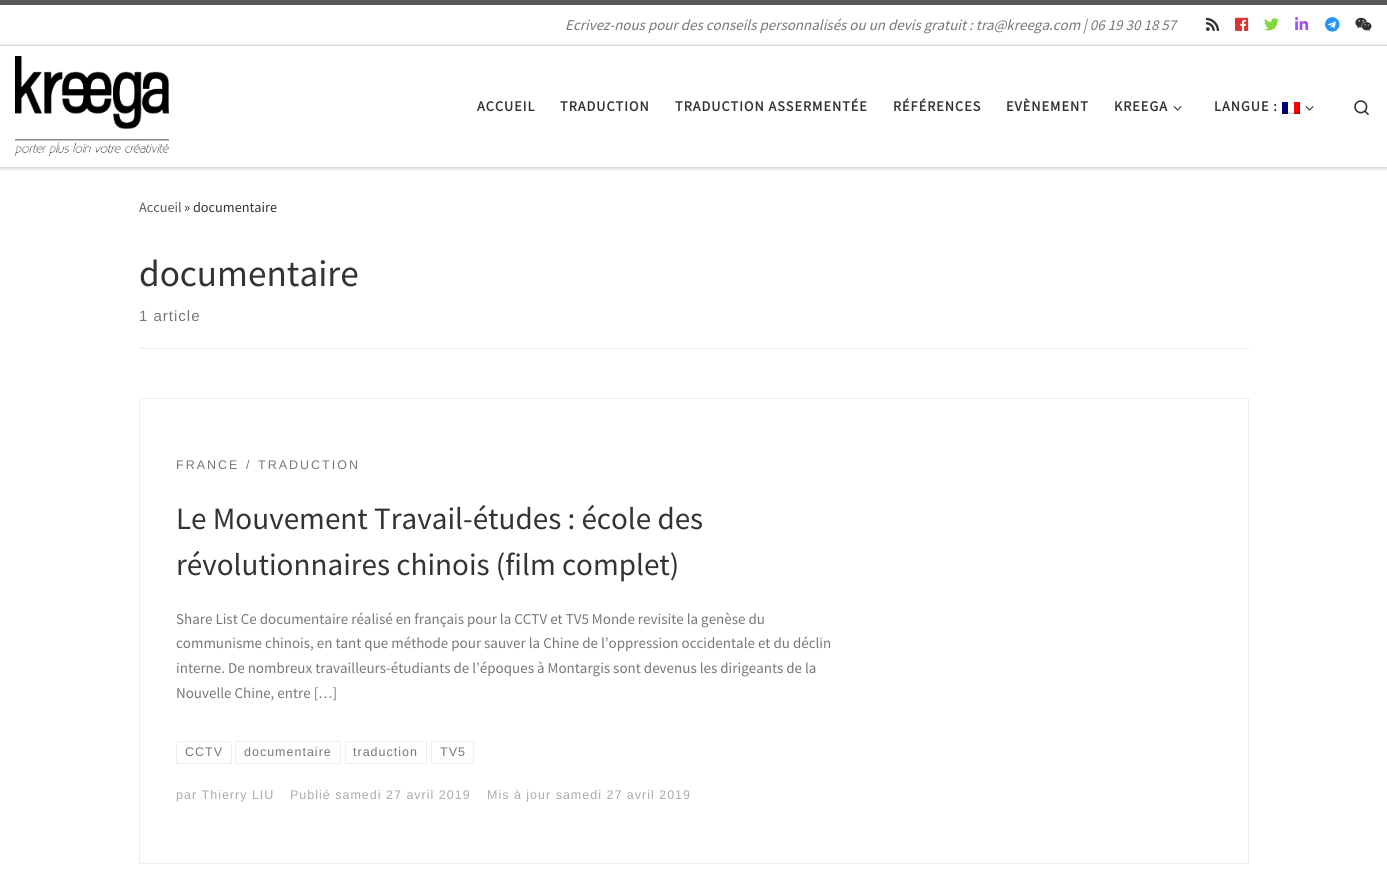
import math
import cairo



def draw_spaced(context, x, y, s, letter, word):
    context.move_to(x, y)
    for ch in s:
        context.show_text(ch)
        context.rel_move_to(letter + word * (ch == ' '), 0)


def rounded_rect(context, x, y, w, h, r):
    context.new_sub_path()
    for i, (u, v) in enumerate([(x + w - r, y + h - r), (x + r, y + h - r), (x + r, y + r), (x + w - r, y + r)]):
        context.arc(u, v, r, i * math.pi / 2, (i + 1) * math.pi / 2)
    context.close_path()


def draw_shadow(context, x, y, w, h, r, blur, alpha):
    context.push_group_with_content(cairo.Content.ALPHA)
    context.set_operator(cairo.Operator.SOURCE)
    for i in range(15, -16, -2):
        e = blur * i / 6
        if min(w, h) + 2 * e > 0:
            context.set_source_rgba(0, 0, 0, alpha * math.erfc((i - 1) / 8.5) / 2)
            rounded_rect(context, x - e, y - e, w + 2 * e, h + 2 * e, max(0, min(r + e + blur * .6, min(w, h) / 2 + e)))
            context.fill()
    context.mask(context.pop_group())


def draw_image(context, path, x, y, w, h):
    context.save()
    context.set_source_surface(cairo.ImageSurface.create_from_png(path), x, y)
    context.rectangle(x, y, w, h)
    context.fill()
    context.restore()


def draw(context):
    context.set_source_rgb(1, 1, 1)
    context.paint()
    context.save()
    context.rectangle(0, 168, 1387, 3)
    context.clip()
    context.set_source_rgb(102 / 255, 102 / 255, 102 / 255)
    draw_shadow(context, 0, 2, 1387, 168, 0, 1, 0.08)
    context.restore()
    context.set_source_rgb(90 / 255, 90 / 255, 90 / 255)
    context.rectangle(0, 0, 1387, 5)
    context.fill()
    context.set_source_rgb(236 / 255, 236 / 255, 236 / 255)
    context.rectangle(0, 45, 1387, 1)
    context.fill()
    draw_image(context, "images/1.png", 1206, 17, 14, 14)
    draw_image(context, "images/2.png", 1235, 17, 14, 14)
    draw_image(context, "images/3.png", 1264, 18, 15, 13)
    draw_image(context, "images/4.png", 1295, 16, 14, 14)
    draw_image(context, "images/5.png", 1325, 17, 15, 15)
    draw_image(context, "images/6.png", 1355, 17, 17, 14)
    context.set_source_rgb(239 / 255, 239 / 255, 239 / 255)
    context.rectangle(0, 167, 1387, 1)
    context.fill()
    context.save()
    context.set_fill_rule(cairo.FillRule.EVEN_ODD)
    context.new_path()
    context.move_to(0, 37)
    context.line_to(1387, 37)
    context.line_to(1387, 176)
    context.line_to(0, 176)
    context.close_path()
    context.move_to(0, 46)
    context.line_to(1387, 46)
    context.line_to(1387, 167)
    context.line_to(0, 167)
    context.close_path()
    context.clip()
    context.set_source_rgb(0, 0, 0)
    draw_shadow(context, 0, 46, 1387, 121, 0, 2.5, 0.2)
    context.restore()
    draw_image(context, "images/7.png", 15, 56, 154, 100)
    draw_image(context, "images/8.png", 1173, 106, 9, 5)
    draw_image(context, "images/9.png", 1282, 102, 18, 12)
    draw_image(context, "images/8.png", 1305, 106, 9, 5)
    draw_image(context, "images/10.png", 1354, 100, 15, 16)
    context.set_source_rgb(236 / 255, 238 / 255, 239 / 255)
    context.rectangle(139, 348, 1110, 1)
    context.fill()
    rounded_rect(context, 176.5, 741.5, 55, 22, 1.5)
    context.set_line_width(1)
    context.stroke()
    rounded_rect(context, 235.5, 741.5, 105, 22, 1.5)
    context.stroke()
    rounded_rect(context, 345.5, 741.5, 81, 22, 1.5)
    context.stroke()
    rounded_rect(context, 431.5, 741.5, 42, 22, 1.5)
    context.stroke()
    context.rectangle(139.5, 398.5, 1109, 465)
    context.set_source_rgb(239 / 255, 239 / 255, 239 / 255)
    context.stroke()
    context.select_font_face("Source Sans Pro", cairo.FontSlant.ITALIC)
    context.set_font_size(15)
    context.set_source_rgb(119 / 255, 119 / 255, 119 / 255)
    context.move_to(565, 30)
    context.show_text("Ecrivez-nous pour des conseils personnalisés ou un devis gratuit : tra@kreega.com | 06 19 30 18 57")
    context.select_font_face("Source Sans Pro", cairo.FontSlant.NORMAL, cairo.FontWeight.BOLD)
    context.set_font_size(14.25)
    context.set_source_rgb(51 / 255, 51 / 255, 51 / 255)
    draw_spaced(context, 477, 111, "ACCUEIL", 1, 0)
    draw_spaced(context, 560, 111, "TRADUCTION", 1, 0)
    draw_spaced(context, 675, 111, "TRADUCTION ASSERMENTÉE", 1, 0)
    draw_spaced(context, 893, 111, "RÉFÉRENCES", 1, 0)
    draw_spaced(context, 1006, 111, "EVÈNEMENT", 1, 0)
    draw_spaced(context, 1114, 111, "KREEGA", 1, 0)
    draw_spaced(context, 1214, 111, "LANGUE :", 1, 0)
    context.select_font_face("Source Sans Pro")
    context.set_source_rgb(90 / 255, 90 / 255, 90 / 255)
    context.move_to(139, 212)
    context.show_text("Accueil")
    context.set_source_rgb(51 / 255, 51 / 255, 51 / 255)
    context.move_to(184, 212)
    context.show_text("» documentaire")
    context.set_font_size(37.25)
    context.move_to(139, 286)
    context.show_text("documentaire")
    context.select_font_face("Liberation Sans")
    context.set_font_size(15)
    context.set_source_rgb(119 / 255, 119 / 255, 119 / 255)
    draw_spaced(context, 139, 321, "1 article", 1, 0)
    context.set_font_size(12.5)
    draw_spaced(context, 176, 469, "FRANCE", 2, 0)
    draw_spaced(context, 246, 469, "/", 2, 0)
    draw_spaced(context, 258, 469, "TRADUCTION", 2, 0)
    context.select_font_face("Source Sans Pro")
    context.set_font_size(31.1)
    context.set_source_rgb(51 / 255, 51 / 255, 51 / 255)
    context.move_to(176, 529)
    context.show_text("Le Mouvement Travail-études : école des")
    context.move_to(176, 575)
    context.show_text("révolutionnaires chinois (film complet)")
    context.set_font_size(15)
    context.set_source_rgb(119 / 255, 119 / 255, 119 / 255)
    context.move_to(176, 624)
    context.show_text("Share List Ce documentaire réalisé en français pour la CCTV et TV5 Monde revisite la genèse du")
    context.move_to(176, 648)
    context.show_text("communisme chinois, en tant que méthode pour sauver la Chine de l’oppression occidentale et du déclin")
    context.move_to(176, 673)
    context.show_text("interne. De nombreux travailleurs-étudiants de l’époques à Montargis sont devenus les dirigeants de la")
    context.move_to(176, 698)
    context.show_text("Nouvelle Chine, entre […]")
    context.select_font_face("Liberation Sans")
    context.set_font_size(12.5)
    draw_spaced(context, 185, 756, "CCTV", 1, 0)
    draw_spaced(context, 244, 756, "documentaire", 1, 0)
    draw_spaced(context, 353, 756, "traduction", 1, 0)
    draw_spaced(context, 440, 756, "TV5", 1, 0)
    context.set_source_rgb(170 / 255, 170 / 255, 170 / 255)
    draw_spaced(context, 176, 799, "par Thierry LIU", 1, 0)
    draw_spaced(context, 290, 799, "Publié samedi 27 avril 2019", 1, 0)
    draw_spaced(context, 487, 799, "Mis à jour samedi 27 avril 2019", 1, 0)


surface = cairo.ImageSurface(cairo.Format.RGB24, 1387, 871)
context = cairo.Context(surface)
options = cairo.FontOptions()
options.set_hint_metrics(cairo.HintMetrics.OFF)
options.set_hint_style(cairo.HintStyle.NONE)
context.set_font_options(options)
context.set_miter_limit(4)
draw(context)
surface.write_to_png("out.png")
